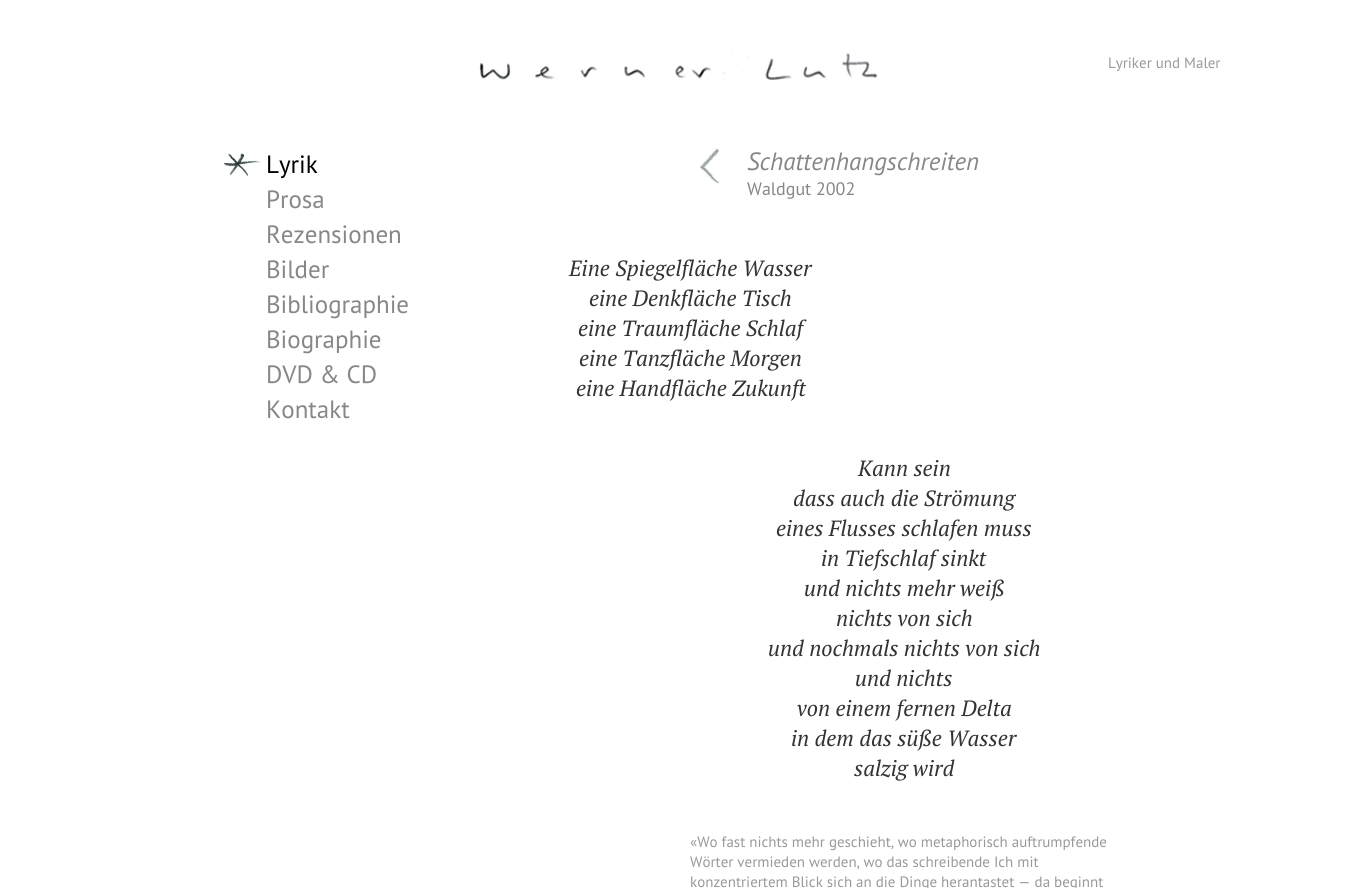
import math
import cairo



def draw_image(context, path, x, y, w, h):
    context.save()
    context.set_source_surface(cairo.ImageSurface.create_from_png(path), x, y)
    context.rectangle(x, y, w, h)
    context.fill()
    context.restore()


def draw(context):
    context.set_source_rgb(1, 1, 1)
    context.paint()
    draw_image(context, "images/1.png", 479, 51, 399, 30)
    draw_image(context, "images/2.png", 223, 153, 37, 23)
    draw_image(context, "images/3.png", 700, 148, 20, 36)
    context.select_font_face("PT Sans")
    context.set_font_size(15)
    context.set_source_rgb(153 / 255, 153 / 255, 153 / 255)
    context.move_to(1108, 68)
    context.show_text("Lyriker und Maler")
    context.set_font_size(25)
    context.set_source_rgb(2 / 255, 1 / 255, 1 / 255)
    context.move_to(266, 173)
    context.show_text("Lyrik")
    context.set_source_rgb(135 / 255, 135 / 255, 135 / 255)
    context.move_to(266, 208)
    context.show_text("Prosa")
    context.move_to(266, 243)
    context.show_text("Rezensionen")
    context.move_to(266, 278)
    context.show_text("Bilder")
    context.move_to(266, 313)
    context.show_text("Bibliographie")
    context.move_to(266, 348)
    context.show_text("Biographie")
    context.move_to(266, 383)
    context.show_text("DVD & CD")
    context.move_to(266, 418)
    context.show_text("Kontakt")
    context.select_font_face("PT Sans", cairo.FontSlant.ITALIC)
    context.move_to(747, 170)
    context.show_text("Schattenhangschreiten")
    context.select_font_face("PT Sans")
    context.set_font_size(18)
    context.move_to(747, 195)
    context.show_text("Waldgut 2002")
    context.select_font_face("PT Serif", cairo.FontSlant.ITALIC)
    context.set_font_size(22)
    context.set_source_rgb(51 / 255, 51 / 255, 51 / 255)
    context.move_to(569, 276)
    context.show_text("Eine Spiegelfläche Wasser")
    context.move_to(589, 306)
    context.show_text("eine Denkfläche Tisch")
    context.move_to(578, 336)
    context.show_text("eine Traumfläche Schlaf")
    context.move_to(579, 366)
    context.show_text("eine Tanzfläche Morgen")
    context.move_to(576, 396)
    context.show_text("eine Handfläche Zukunft")
    context.move_to(858, 476)
    context.show_text("Kann sein")
    context.move_to(793, 506)
    context.show_text("dass auch die Strömung")
    context.move_to(776, 536)
    context.show_text("eines Flusses schlafen muss")
    context.move_to(821, 566)
    context.show_text("in Tiefschlaf sinkt")
    context.move_to(804, 596)
    context.show_text("und nichts mehr weiß")
    context.move_to(836, 626)
    context.show_text("nichts von sich")
    context.move_to(768, 656)
    context.show_text("und nochmals nichts von sich")
    context.move_to(855, 686)
    context.show_text("und nichts")
    context.move_to(797, 716)
    context.show_text("von einem fernen Delta")
    context.move_to(791, 746)
    context.show_text("in dem das süße Wasser")
    context.move_to(854, 776)
    context.show_text("salzig wird")
    context.select_font_face("PT Sans")
    context.set_font_size(15)
    context.set_source_rgb(153 / 255, 153 / 255, 153 / 255)
    context.move_to(690, 847)
    context.show_text("«Wo fast nichts mehr geschieht, wo metaphorisch auftrumpfende")
    context.move_to(690, 867)
    context.show_text("Wörter vermieden werden, wo das schreibende Ich mit")
    context.move_to(690, 887)
    context.show_text("konzentriertem Blick sich an die Dinge herantastet — da beginnt")


surface = cairo.ImageSurface(cairo.Format.RGB24, 1356, 888)
context = cairo.Context(surface)
options = cairo.FontOptions()
options.set_hint_metrics(cairo.HintMetrics.OFF)
options.set_hint_style(cairo.HintStyle.NONE)
context.set_font_options(options)
context.set_miter_limit(4)
draw(context)
surface.write_to_png("out.png")
